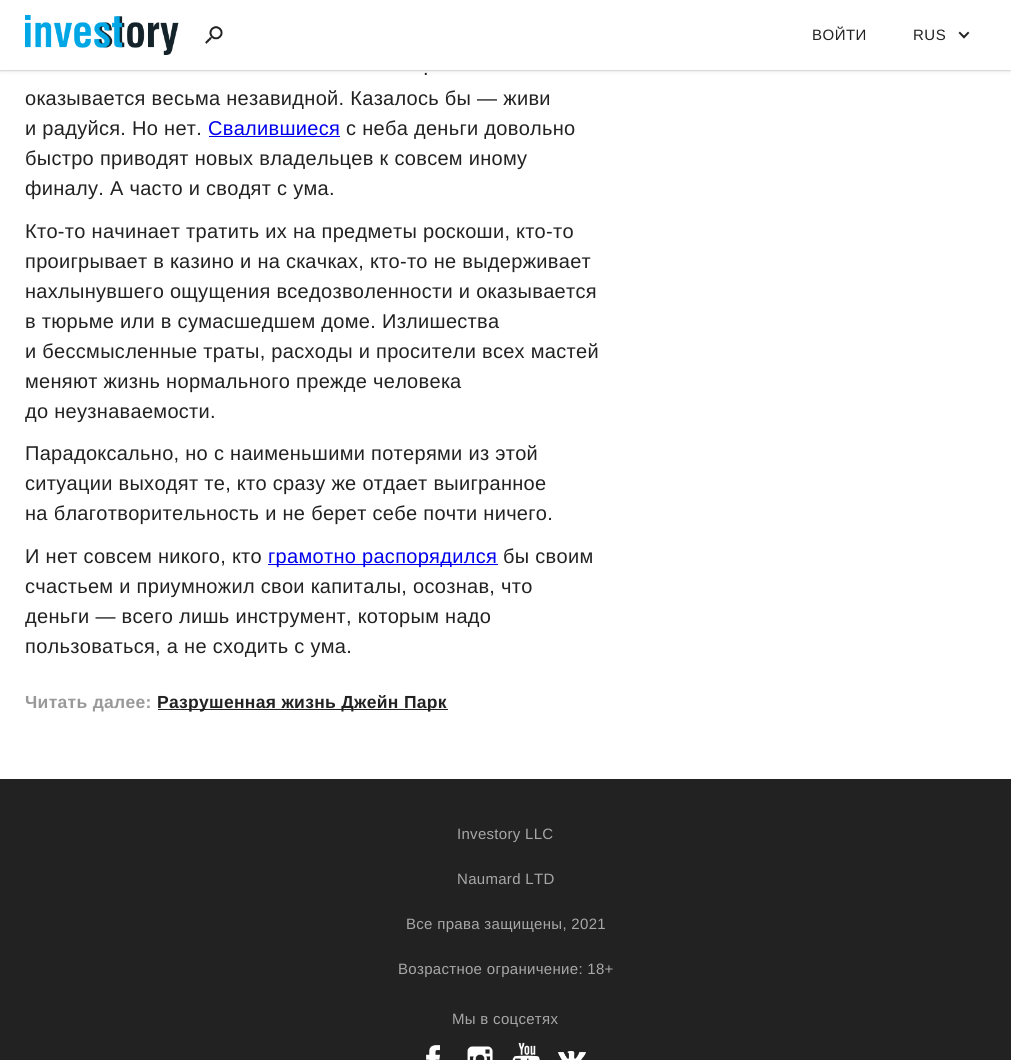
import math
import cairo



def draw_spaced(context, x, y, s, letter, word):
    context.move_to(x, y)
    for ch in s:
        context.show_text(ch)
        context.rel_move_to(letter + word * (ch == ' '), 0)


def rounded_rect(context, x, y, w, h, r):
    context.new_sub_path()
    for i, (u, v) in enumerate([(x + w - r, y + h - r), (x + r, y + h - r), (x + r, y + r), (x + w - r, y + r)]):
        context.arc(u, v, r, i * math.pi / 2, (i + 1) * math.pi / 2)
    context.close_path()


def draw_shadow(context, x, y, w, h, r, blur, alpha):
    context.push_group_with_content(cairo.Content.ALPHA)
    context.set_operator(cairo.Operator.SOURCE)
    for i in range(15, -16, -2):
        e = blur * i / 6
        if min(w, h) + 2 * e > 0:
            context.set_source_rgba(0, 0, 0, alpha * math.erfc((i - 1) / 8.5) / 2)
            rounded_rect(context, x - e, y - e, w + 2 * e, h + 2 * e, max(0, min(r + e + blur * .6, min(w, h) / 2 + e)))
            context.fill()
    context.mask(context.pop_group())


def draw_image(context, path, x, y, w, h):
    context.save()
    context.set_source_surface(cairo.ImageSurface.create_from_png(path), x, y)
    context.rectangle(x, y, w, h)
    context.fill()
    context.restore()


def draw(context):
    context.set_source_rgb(1, 1, 1)
    context.paint()
    context.set_source_rgb(0, 0, 0)
    draw_shadow(context, 0, 1, 1011, 70, 0, 2.5, 0.1)
    draw_shadow(context, 0, 1, 1011, 70, 0, 0.5, 0.1)
    context.set_source_rgb(1, 1, 1)
    context.rectangle(0, 0, 1011, 70)
    context.fill()
    draw_image(context, "images/1.png", 25, 15, 154, 40)
    draw_image(context, "images/2.png", 205, 26, 18, 18)
    draw_image(context, "images/3.png", 958, 31, 12, 8)
    context.set_source_rgb(0, 0, 238 / 255)
    context.rectangle(209, 136, 131, 1)
    context.fill()
    context.rectangle(268, 564, 230, 1)
    context.fill()
    context.set_source_rgb(34 / 255, 34 / 255, 34 / 255)
    context.rectangle(158, 709, 290, 1)
    context.fill()
    context.rectangle(0, 779, 1011, 281)
    context.fill()
    draw_image(context, "images/4.png", 426, 1045, 14, 15)
    draw_image(context, "images/5.png", 467, 1046, 26, 14)
    draw_image(context, "images/6.png", 512, 1042, 28, 18)
    draw_image(context, "images/7.png", 558, 1051, 28, 9)
    context.select_font_face("Liberation Sans")
    context.set_font_size(15)
    draw_spaced(context, 812, 40, "ВОЙТИ", 0.5, 0)
    draw_spaced(context, 913, 40, "RUS", 0.5, 0)
    context.set_font_size(20)
    draw_spaced(context, 423, 75, ".", 0.3, 0)
    draw_spaced(context, 25, 105, "оказывается весьма незавидной. Казалось бы — живи", 0.3, 0)
    draw_spaced(context, 25, 135, "и радуйся. Но нет.", 0.3, 0)
    context.set_source_rgb(0, 0, 238 / 255)
    draw_spaced(context, 208, 135, "Свалившиеся", 0.3, 0)
    context.set_source_rgb(34 / 255, 34 / 255, 34 / 255)
    draw_spaced(context, 346, 135, "с неба деньги довольно", 0.3, 0)
    draw_spaced(context, 25, 165, "быстро приводят новых владельцев к совсем иному", 0.3, 0)
    draw_spaced(context, 25, 195, "финалу. А часто и сводят с ума.", 0.3, 0)
    draw_spaced(context, 25, 238, "Кто-то начинает тратить их на предметы роскоши, кто-то", 0.3, 0)
    draw_spaced(context, 25, 268, "проигрывает в казино и на скачках, кто-то не выдерживает", 0.3, 0)
    draw_spaced(context, 25, 298, "нахлынувшего ощущения вседозволенности и оказывается", 0.3, 0)
    draw_spaced(context, 25, 328, "в тюрьме или в сумасшедшем доме. Излишества", 0.3, 0)
    draw_spaced(context, 25, 358, "и бессмысленные траты, расходы и просители всех мастей", 0.3, 0)
    draw_spaced(context, 25, 388, "меняют жизнь нормального прежде человека", 0.3, 0)
    draw_spaced(context, 25, 418, "до неузнаваемости.", 0.3, 0)
    draw_spaced(context, 25, 460, "Парадоксально, но с наименьшими потерями из этой", 0.3, 0)
    draw_spaced(context, 25, 490, "ситуации выходят те, кто сразу же отдает выигранное", 0.3, 0)
    draw_spaced(context, 25, 520, "на благотворительность и не берет себе почти ничего.", 0.3, 0)
    draw_spaced(context, 25, 563, "И нет совсем никого, кто", 0.3, 0)
    context.set_source_rgb(0, 0, 238 / 255)
    draw_spaced(context, 268, 563, "грамотно распорядился", 0.3, 0)
    context.set_source_rgb(34 / 255, 34 / 255, 34 / 255)
    draw_spaced(context, 503, 563, "бы своим", 0.3, 0)
    draw_spaced(context, 25, 593, "счастьем и приумножил свои капиталы, осознав, что", 0.3, 0)
    draw_spaced(context, 25, 623, "деньги — всего лишь инструмент, которым надо", 0.3, 0)
    draw_spaced(context, 25, 653, "пользоваться, а не сходить с ума.", 0.3, 0)
    context.select_font_face("Liberation Sans", cairo.FontSlant.NORMAL, cairo.FontWeight.BOLD)
    context.set_font_size(17.5)
    context.set_source_rgb(153 / 255, 153 / 255, 153 / 255)
    draw_spaced(context, 25, 708, "Читать далее:", 0.3, 0)
    context.set_source_rgb(34 / 255, 34 / 255, 34 / 255)
    draw_spaced(context, 157, 708, "Разрушенная жизнь Джейн Парк", 0.3, 0)
    context.select_font_face("Liberation Sans")
    context.set_font_size(15)
    context.set_source_rgb(167 / 255, 167 / 255, 167 / 255)
    draw_spaced(context, 457, 839, "Investory LLC", 0.3, 0)
    draw_spaced(context, 457, 884, "Naumard LTD", 0.3, 0)
    draw_spaced(context, 406, 929, "Все права защищены, 2021", 0.3, 0)
    draw_spaced(context, 398, 974, "Возрастное ограничение: 18+", 0.3, 0)
    draw_spaced(context, 452, 1024, "Мы в соцсетях", 0.3, 0)


surface = cairo.ImageSurface(cairo.Format.RGB24, 1011, 1060)
context = cairo.Context(surface)
options = cairo.FontOptions()
options.set_hint_metrics(cairo.HintMetrics.OFF)
options.set_hint_style(cairo.HintStyle.NONE)
context.set_font_options(options)
context.set_miter_limit(4)
draw(context)
surface.write_to_png("out.png")
